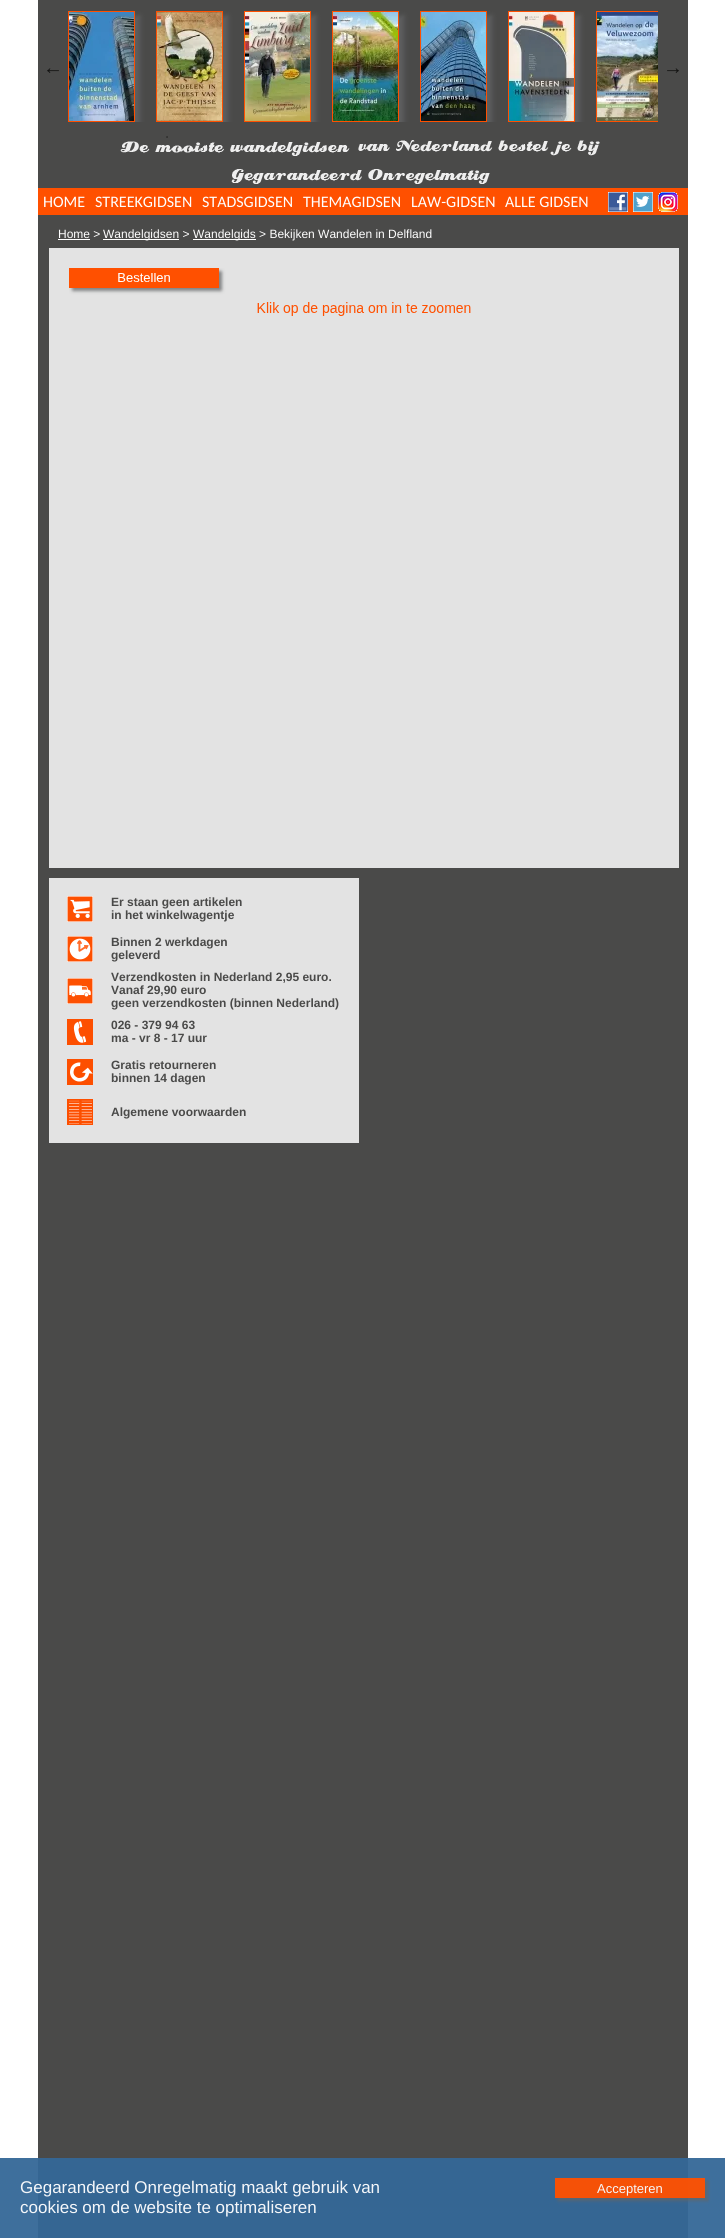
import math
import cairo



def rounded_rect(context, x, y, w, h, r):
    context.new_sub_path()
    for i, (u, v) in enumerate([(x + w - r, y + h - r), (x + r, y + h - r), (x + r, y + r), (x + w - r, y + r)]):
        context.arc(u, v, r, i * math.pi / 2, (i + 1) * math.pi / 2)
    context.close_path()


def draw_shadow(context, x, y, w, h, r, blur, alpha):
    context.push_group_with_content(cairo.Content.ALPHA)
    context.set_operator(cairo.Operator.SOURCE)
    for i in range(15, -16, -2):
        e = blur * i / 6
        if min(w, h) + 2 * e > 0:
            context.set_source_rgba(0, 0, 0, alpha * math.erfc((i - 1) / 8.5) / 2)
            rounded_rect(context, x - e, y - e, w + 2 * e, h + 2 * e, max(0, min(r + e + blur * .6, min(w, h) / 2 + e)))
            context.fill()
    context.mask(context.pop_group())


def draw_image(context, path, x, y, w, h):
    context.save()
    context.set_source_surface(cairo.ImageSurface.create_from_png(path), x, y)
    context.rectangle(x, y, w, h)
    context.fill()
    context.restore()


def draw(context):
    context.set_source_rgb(1, 1, 1)
    context.paint()
    context.set_source_rgb(62 / 255, 111 / 255, 156 / 255)
    context.rectangle(0, 2158, 725, 80)
    context.fill()
    context.set_source_rgb(245 / 255, 82 / 255, 8 / 255)
    context.rectangle(688, 2178, 17, 20)
    context.fill()
    context.set_source_rgb(74 / 255, 74 / 255, 73 / 255)
    context.rectangle(38, 0, 650, 2158)
    context.fill()
    context.set_source_rgb(53 / 255, 102 / 255, 147 / 255)
    context.rectangle(38, 2158, 650, 80)
    context.fill()
    context.set_source_rgb(245 / 255, 81 / 255, 7 / 255)
    context.rectangle(555, 2178, 133, 20)
    context.fill()
    context.save()
    context.rectangle(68, 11, 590, 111)
    context.clip()
    context.set_source_rgb(100 / 255, 101 / 255, 103 / 255)
    draw_shadow(context, 73, 16, 67, 111, 0, 2.5, 0.75)
    context.restore()
    context.rectangle(68.5, 11.5, 66, 110)
    context.set_source_rgb(1, 80 / 255, 0)
    context.set_line_width(1)
    context.stroke()
    draw_image(context, "images/1.png", 69, 12, 65, 109)
    context.save()
    context.rectangle(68, 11, 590, 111)
    context.clip()
    context.set_source_rgb(100 / 255, 101 / 255, 103 / 255)
    draw_shadow(context, 161, 16, 67, 111, 0, 2.5, 0.75)
    context.restore()
    context.rectangle(156.5, 11.5, 66, 110)
    context.stroke()
    draw_image(context, "images/2.png", 157, 12, 65, 109)
    context.save()
    context.rectangle(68, 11, 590, 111)
    context.clip()
    context.set_source_rgb(100 / 255, 101 / 255, 103 / 255)
    draw_shadow(context, 249, 16, 67, 111, 0, 2.5, 0.75)
    context.restore()
    context.rectangle(244.5, 11.5, 66, 110)
    context.stroke()
    draw_image(context, "images/3.png", 245, 12, 65, 109)
    context.save()
    context.rectangle(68, 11, 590, 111)
    context.clip()
    context.set_source_rgb(100 / 255, 101 / 255, 103 / 255)
    draw_shadow(context, 337, 16, 67, 111, 0, 2.5, 0.75)
    context.restore()
    context.rectangle(332.5, 11.5, 66, 110)
    context.stroke()
    draw_image(context, "images/4.png", 333, 12, 65, 109)
    context.save()
    context.rectangle(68, 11, 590, 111)
    context.clip()
    context.set_source_rgb(100 / 255, 101 / 255, 103 / 255)
    draw_shadow(context, 425, 16, 67, 111, 0, 2.5, 0.75)
    context.restore()
    context.rectangle(420.5, 11.5, 66, 110)
    context.stroke()
    draw_image(context, "images/5.png", 421, 12, 65, 109)
    context.save()
    context.rectangle(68, 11, 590, 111)
    context.clip()
    context.set_source_rgb(100 / 255, 101 / 255, 103 / 255)
    draw_shadow(context, 513, 16, 67, 111, 0, 2.5, 0.75)
    context.restore()
    context.rectangle(508.5, 11.5, 66, 110)
    context.stroke()
    draw_image(context, "images/6.png", 509, 12, 65, 109)
    context.save()
    context.rectangle(68, 11, 590, 111)
    context.clip()
    context.rectangle(596.5, 11.5, 66, 110)
    context.stroke()
    context.restore()
    draw_image(context, "images/7.png", 597, 12, 61, 109)
    draw_image(context, "images/8.png", 120, 141, 230, 15)
    draw_image(context, "images/9.png", 358, 140, 242, 16)
    draw_image(context, "images/10.png", 231, 169, 259, 15)
    context.rectangle(38, 188, 650, 27)
    context.fill()
    draw_image(context, "images/11.png", 608, 192, 20, 20)
    draw_image(context, "images/12.png", 633, 192, 20, 20)
    draw_image(context, "images/13.png", 658, 192, 20, 20)
    context.set_source_rgb(1, 1, 1)
    context.rectangle(58, 239, 32, 1)
    context.fill()
    context.rectangle(103, 239, 76, 1)
    context.fill()
    context.rectangle(193, 239, 63, 1)
    context.fill()
    context.set_source_rgb(227 / 255, 227 / 255, 227 / 255)
    context.rectangle(49, 248, 630, 620)
    context.fill()
    draw_image(context, "images/14.png", 69, 268, 402, 48)
    context.rectangle(49, 878, 310, 265)
    context.fill()
    draw_image(context, "images/15.png", 67, 896, 26, 26)
    draw_image(context, "images/16.png", 67, 936, 26, 26)
    draw_image(context, "images/17.png", 67, 978, 26, 26)
    draw_image(context, "images/18.png", 67, 1019, 26, 26)
    draw_image(context, "images/19.png", 67, 1059, 26, 26)
    draw_image(context, "images/20.png", 67, 1099, 26, 26)
    context.save()
    context.set_fill_rule(cairo.FillRule.EVEN_ODD)
    context.new_path()
    context.move_to(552, 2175)
    context.line_to(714, 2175)
    context.line_to(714, 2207)
    context.line_to(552, 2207)
    context.close_path()
    context.move_to(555, 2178)
    context.line_to(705, 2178)
    context.line_to(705, 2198)
    context.line_to(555, 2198)
    context.close_path()
    context.clip()
    context.set_source_rgb(100 / 255, 101 / 255, 103 / 255)
    draw_shadow(context, 558, 2181, 150, 20, 0, 1.5, 0.71)
    context.restore()
    context.select_font_face("Liberation Serif")
    context.set_font_size(20)
    context.set_source_rgb(19 / 255, 19 / 255, 18 / 255)
    context.move_to(43, 74)
    context.show_text("←")
    context.move_to(663, 74)
    context.show_text("→")
    context.set_font_size(6)
    context.move_to(166, 139)
    context.show_text("•")
    context.select_font_face("Carlito")
    context.set_font_size(16)
    context.set_source_rgb(1, 1, 1)
    context.move_to(43, 207)
    context.show_text("HOME")
    context.move_to(95, 207)
    context.show_text("STREEKGIDSEN")
    context.move_to(202, 207)
    context.show_text("STADSGIDSEN")
    context.move_to(303, 207)
    context.show_text("THEMAGIDSEN")
    context.move_to(411, 207)
    context.show_text("LAW-GIDSEN")
    context.move_to(505, 207)
    context.show_text("ALLE GIDSEN")
    context.select_font_face("Liberation Sans")
    context.set_font_size(12)
    context.move_to(58, 238)
    context.show_text("Home >")
    context.move_to(103, 238)
    context.show_text("Wandelgidsen >")
    context.move_to(193, 238)
    context.show_text("Wandelgids > Bekijken Wandelen in Delfland")
    context.select_font_face("Liberation Sans", cairo.FontSlant.NORMAL, cairo.FontWeight.BOLD)
    context.set_source_rgb(74 / 255, 74 / 255, 73 / 255)
    context.move_to(111, 906)
    context.show_text("Er staan geen artikelen")
    context.move_to(111, 919)
    context.show_text("in het winkelwagentje")
    context.move_to(111, 946)
    context.show_text("Binnen 2 werkdagen")
    context.move_to(111, 959)
    context.show_text("geleverd")
    context.move_to(111, 981)
    context.show_text("Verzendkosten in Nederland 2,95 euro.")
    context.move_to(111, 994)
    context.show_text("Vanaf 29,90 euro")
    context.move_to(111, 1007)
    context.show_text("geen verzendkosten (binnen Nederland)")
    context.move_to(111, 1029)
    context.show_text("026 - 379 94 63")
    context.move_to(111, 1042)
    context.show_text("ma - vr 8 - 17 uur")
    context.move_to(111, 1069)
    context.show_text("Gratis retourneren")
    context.move_to(111, 1082)
    context.show_text("binnen 14 dagen")
    context.move_to(111, 1116)
    context.show_text("Algemene voorwaarden")
    context.select_font_face("Liberation Sans")
    context.set_font_size(17)
    context.set_source_rgb(245 / 255, 247 / 255, 250 / 255)
    context.move_to(20, 2193)
    context.show_text("Gegarandeerd Onregelmatig maakt gebruik van")
    context.move_to(20, 2213)
    context.show_text("cookies om de website te optimaliseren")
    context.set_font_size(13)
    context.move_to(597, 2193)
    context.show_text("Accepteren")


surface = cairo.ImageSurface(cairo.Format.RGB24, 725, 2238)
context = cairo.Context(surface)
options = cairo.FontOptions()
options.set_hint_metrics(cairo.HintMetrics.OFF)
options.set_hint_style(cairo.HintStyle.NONE)
context.set_font_options(options)
context.set_miter_limit(4)
draw(context)
surface.write_to_png("out.png")
